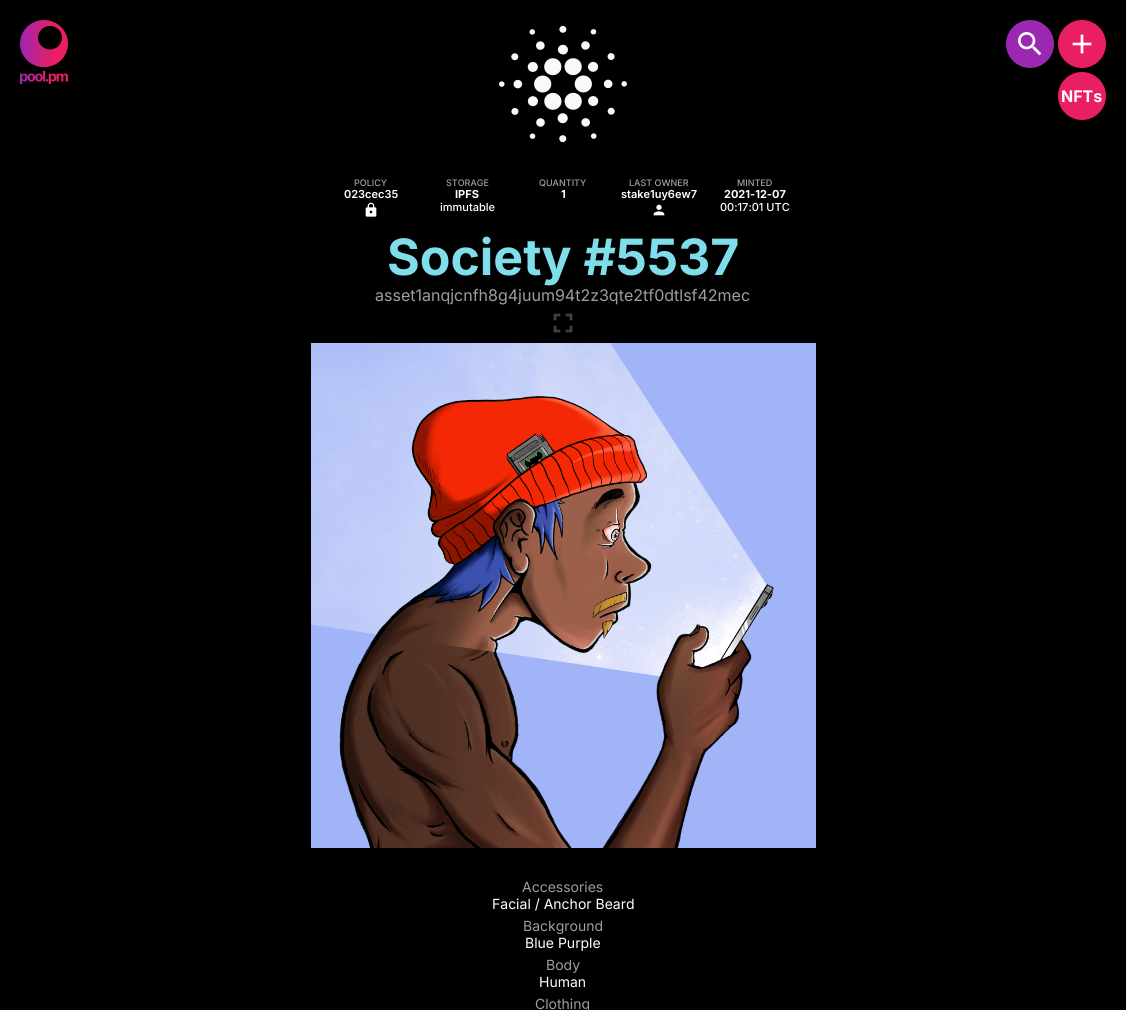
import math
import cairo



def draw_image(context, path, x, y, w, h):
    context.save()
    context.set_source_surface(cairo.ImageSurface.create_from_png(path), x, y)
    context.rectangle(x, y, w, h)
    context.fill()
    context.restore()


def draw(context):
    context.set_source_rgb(0, 0, 0)
    context.paint()
    draw_image(context, "images/1.png", 20, 20, 48, 64)
    context.set_source_rgb(156 / 255, 39 / 255, 176 / 255)
    context.arc(1030, 44, 24, 0, 2 * math.pi)
    context.fill()
    draw_image(context, "images/2.png", 1018, 32, 24, 24)
    context.set_source_rgb(233 / 255, 30 / 255, 99 / 255)
    context.arc(1082, 44, 24, 0, 2 * math.pi)
    context.fill()
    draw_image(context, "images/3.png", 1072, 34, 20, 20)
    context.arc(1082, 96, 24, 0, 2 * math.pi)
    context.fill()
    draw_image(context, "images/4.png", 499, 25, 128, 118)
    draw_image(context, "images/5.png", 365, 202, 12, 15)
    draw_image(context, "images/6.png", 653, 204, 12, 12)
    draw_image(context, "images/7.png", 553, 313, 20, 20)
    draw_image(context, "images/8.png", 311, 343, 505, 505)
    context.select_font_face("Inter", cairo.FontSlant.NORMAL, cairo.FontWeight.BOLD)
    context.set_font_size(16)
    context.set_source_rgb(1, 1, 1)
    context.move_to(1061, 102)
    context.show_text("NFTs")
    context.select_font_face("Inter Medium")
    context.set_font_size(9)
    context.set_source_rgb(158 / 255, 158 / 255, 158 / 255)
    context.move_to(354, 186)
    context.show_text("POLICY")
    context.select_font_face("Inter SemiBold")
    context.set_font_size(11)
    context.set_source_rgb(1, 1, 1)
    context.move_to(344, 198)
    context.show_text("023cec35")
    context.select_font_face("Inter Medium")
    context.set_font_size(9)
    context.set_source_rgb(158 / 255, 158 / 255, 158 / 255)
    context.move_to(446, 186)
    context.show_text("STORAGE")
    context.select_font_face("Inter", cairo.FontSlant.NORMAL, cairo.FontWeight.BOLD)
    context.set_font_size(11)
    context.set_source_rgb(1, 1, 1)
    context.move_to(455, 198)
    context.show_text("IPFS")
    context.select_font_face("Inter Medium")
    context.move_to(440, 211)
    context.show_text("immutable")
    context.set_font_size(9)
    context.set_source_rgb(158 / 255, 158 / 255, 158 / 255)
    context.move_to(539, 186)
    context.show_text("QUANTITY")
    context.select_font_face("Inter", cairo.FontSlant.NORMAL, cairo.FontWeight.BOLD)
    context.set_font_size(11)
    context.set_source_rgb(1, 1, 1)
    context.move_to(561, 198)
    context.show_text("1")
    context.select_font_face("Inter Medium")
    context.set_font_size(9)
    context.set_source_rgb(158 / 255, 158 / 255, 158 / 255)
    context.move_to(629, 186)
    context.show_text("LAST OWNER")
    context.select_font_face("Inter SemiBold")
    context.set_font_size(11)
    context.set_source_rgb(1, 1, 1)
    context.move_to(621, 198)
    context.show_text("stake1uy6ew7")
    context.select_font_face("Inter Medium")
    context.set_font_size(9)
    context.set_source_rgb(158 / 255, 158 / 255, 158 / 255)
    context.move_to(737, 186)
    context.show_text("MINTED")
    context.select_font_face("Inter", cairo.FontSlant.NORMAL, cairo.FontWeight.BOLD)
    context.set_font_size(11)
    context.set_source_rgb(1, 1, 1)
    context.move_to(724, 198)
    context.show_text("2021-12-07")
    context.select_font_face("Inter Medium")
    context.move_to(720, 211)
    context.show_text("00:17:01 UTC")
    context.select_font_face("Inter", cairo.FontSlant.NORMAL, cairo.FontWeight.BOLD)
    context.set_font_size(50)
    context.set_source_rgb(128 / 255, 222 / 255, 234 / 255)
    context.move_to(387, 275)
    context.show_text("Society #5537")
    context.select_font_face("Inter")
    context.set_font_size(16)
    context.set_source_rgb(158 / 255, 158 / 255, 158 / 255)
    context.move_to(375, 301)
    context.show_text("asset1anqjcnfh8g4juum94t2z3qte2tf0dtlsf42mec")
    context.set_font_size(14)
    context.move_to(522, 892)
    context.show_text("Accessories")
    context.set_source_rgb(1, 1, 1)
    context.move_to(492, 909)
    context.show_text("Facial / Anchor Beard")
    context.set_source_rgb(158 / 255, 158 / 255, 158 / 255)
    context.move_to(523, 931)
    context.show_text("Background")
    context.set_source_rgb(1, 1, 1)
    context.move_to(525, 948)
    context.show_text("Blue Purple")
    context.set_source_rgb(158 / 255, 158 / 255, 158 / 255)
    context.move_to(546, 970)
    context.show_text("Body")
    context.set_source_rgb(1, 1, 1)
    context.move_to(539, 987)
    context.show_text("Human")
    context.set_source_rgb(158 / 255, 158 / 255, 158 / 255)
    context.move_to(535, 1009)
    context.show_text("Clothing")


surface = cairo.ImageSurface(cairo.Format.RGB24, 1126, 1010)
context = cairo.Context(surface)
options = cairo.FontOptions()
options.set_hint_metrics(cairo.HintMetrics.OFF)
options.set_hint_style(cairo.HintStyle.NONE)
context.set_font_options(options)
context.set_miter_limit(4)
draw(context)
surface.write_to_png("out.png")
